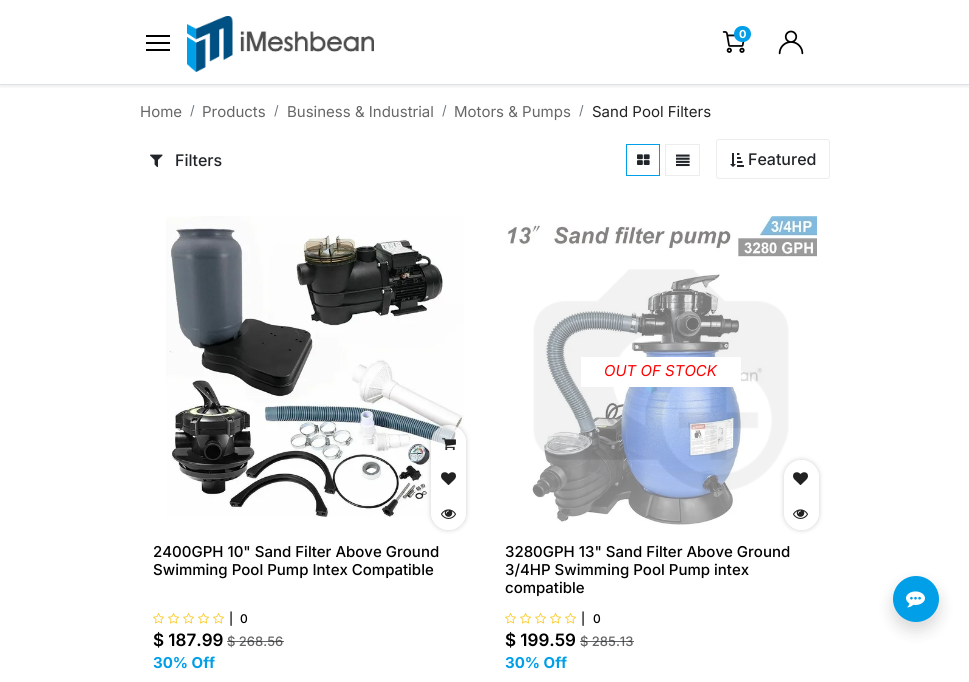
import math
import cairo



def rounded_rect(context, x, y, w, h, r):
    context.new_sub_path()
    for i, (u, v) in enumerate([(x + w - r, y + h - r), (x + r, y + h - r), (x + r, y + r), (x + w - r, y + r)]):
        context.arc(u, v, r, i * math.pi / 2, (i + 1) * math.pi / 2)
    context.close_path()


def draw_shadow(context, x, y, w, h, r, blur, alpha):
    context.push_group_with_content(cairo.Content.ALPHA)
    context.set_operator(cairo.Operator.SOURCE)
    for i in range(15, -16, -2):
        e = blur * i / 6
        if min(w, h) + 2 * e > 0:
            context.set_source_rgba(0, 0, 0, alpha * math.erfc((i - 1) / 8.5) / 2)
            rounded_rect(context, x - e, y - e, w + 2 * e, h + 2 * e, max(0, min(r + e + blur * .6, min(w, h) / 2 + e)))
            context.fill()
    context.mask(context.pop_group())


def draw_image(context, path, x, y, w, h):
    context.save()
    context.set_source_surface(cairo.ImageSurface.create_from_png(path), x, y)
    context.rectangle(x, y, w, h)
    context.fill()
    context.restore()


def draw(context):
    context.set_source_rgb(1, 1, 1)
    context.paint()
    context.save()
    context.rectangle(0, 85, 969, 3)
    context.clip()
    context.set_source_rgb(0, 0, 0)
    draw_shadow(context, 0, 7, 969, 80, 0, 2, 0.07)
    context.restore()
    context.set_source_rgb(0, 0, 0)
    context.rectangle(146, 35, 24, 2)
    context.fill()
    context.rectangle(146, 42, 24, 2)
    context.fill()
    context.rectangle(146, 49, 24, 2)
    context.fill()
    draw_image(context, "images/1.png", 187, 16, 187, 56)
    draw_image(context, "images/2.png", 722, 31, 23, 22)
    context.set_source_rgb(1 / 255, 159 / 255, 232 / 255)
    rounded_rect(context, 734, 26, 17, 16, 8)
    context.fill()
    draw_image(context, "images/3.png", 778, 30, 26, 25)
    context.set_source_rgb(222 / 255, 226 / 255, 230 / 255)
    context.rectangle(0, 84, 969, 1)
    context.fill()
    draw_image(context, "images/4.png", 150, 154, 13, 14)
    context.rectangle(626.5, 144.5, 33, 31)
    context.set_source_rgb(1 / 255, 159 / 255, 232 / 255)
    context.set_line_width(1)
    context.stroke()
    draw_image(context, "images/5.png", 637, 154, 13, 11)
    context.rectangle(665.5, 144.5, 34, 31)
    context.set_source_rgb(237 / 255, 237 / 255, 237 / 255)
    context.stroke()
    draw_image(context, "images/6.png", 676, 154, 14, 13)
    rounded_rect(context, 716.5, 139.5, 113, 39, 2.5)
    context.stroke()
    draw_image(context, "images/7.png", 730, 153, 14, 14)
    draw_image(context, "images/8.png", 166, 216, 298, 301)
    context.save()
    context.set_fill_rule(cairo.FillRule.EVEN_ODD)
    context.new_path()
    context.move_to(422, 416)
    context.line_to(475, 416)
    context.line_to(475, 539)
    context.line_to(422, 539)
    context.close_path()
    context.move_to(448.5, 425)
    context.curve_to(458, 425, 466, 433, 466, 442.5)
    context.line_to(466, 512.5)
    context.curve_to(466, 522, 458, 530, 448.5, 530)
    context.curve_to(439, 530, 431, 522, 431, 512.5)
    context.line_to(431, 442.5)
    context.curve_to(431, 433, 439, 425, 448.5, 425)
    context.close_path()
    context.clip()
    context.set_source_rgb(0, 0, 0)
    draw_shadow(context, 431, 425, 35, 105, 17.5, 2.5, 0.2)
    context.restore()
    context.set_source_rgba(1, 1, 1, 0.68)
    rounded_rect(context, 431, 425, 35, 105, 17.5)
    context.fill()
    draw_image(context, "images/9.png", 442, 438, 14, 13)
    draw_image(context, "images/10.png", 441, 472, 15, 13)
    draw_image(context, "images/11.png", 441, 509, 15, 10)
    draw_image(context, "images/12.png", 153, 613, 12, 11)
    draw_image(context, "images/12.png", 168, 613, 12, 11)
    draw_image(context, "images/12.png", 183, 613, 12, 11)
    draw_image(context, "images/12.png", 198, 613, 12, 11)
    draw_image(context, "images/12.png", 213, 613, 12, 11)
    draw_image(context, "images/13.png", 533, 269, 256, 223)
    draw_image(context, "images/14.png", 507, 216, 310, 309)
    context.set_source_rgb(1, 1, 1)
    context.rectangle(581, 357, 160, 30)
    context.fill()
    context.save()
    context.set_fill_rule(cairo.FillRule.EVEN_ODD)
    context.new_path()
    context.move_to(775, 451)
    context.line_to(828, 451)
    context.line_to(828, 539)
    context.line_to(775, 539)
    context.close_path()
    context.move_to(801.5, 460)
    context.curve_to(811, 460, 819, 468, 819, 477.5)
    context.line_to(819, 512.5)
    context.curve_to(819, 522, 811, 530, 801.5, 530)
    context.curve_to(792, 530, 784, 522, 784, 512.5)
    context.line_to(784, 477.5)
    context.curve_to(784, 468, 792, 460, 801.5, 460)
    context.close_path()
    context.clip()
    context.set_source_rgb(0, 0, 0)
    draw_shadow(context, 784, 460, 35, 70, 17.5, 2.5, 0.2)
    context.restore()
    context.set_source_rgba(1, 1, 1, 0.68)
    rounded_rect(context, 784, 460, 35, 70, 17.5)
    context.fill()
    draw_image(context, "images/15.png", 793, 472, 15, 13)
    draw_image(context, "images/16.png", 793, 509, 15, 10)
    draw_image(context, "images/12.png", 505, 613, 12, 11)
    draw_image(context, "images/12.png", 520, 613, 12, 11)
    draw_image(context, "images/12.png", 535, 613, 12, 11)
    draw_image(context, "images/12.png", 550, 613, 12, 11)
    draw_image(context, "images/12.png", 565, 613, 12, 11)
    context.set_source_rgb(0, 0, 0)
    draw_shadow(context, 893, 584, 46, 46, 23, 8, 0.15)
    context.set_source_rgb(1 / 255, 159 / 255, 232 / 255)
    context.arc(916, 599, 23, 0, 2 * math.pi)
    context.fill()
    draw_image(context, "images/17.png", 906, 591, 19, 17)
    context.select_font_face("Inter", cairo.FontSlant.NORMAL, cairo.FontWeight.BOLD)
    context.set_font_size(11)
    context.set_source_rgb(1, 1, 1)
    context.move_to(739, 38)
    context.show_text("0")
    context.select_font_face("Inter")
    context.set_font_size(15)
    context.set_source_rgb(102 / 255, 102 / 255, 102 / 255)
    context.move_to(140, 117)
    context.show_text("Home")
    context.set_font_size(13)
    context.set_source_rgb(108 / 255, 117 / 255, 125 / 255)
    context.move_to(190, 115)
    context.show_text("/")
    context.set_font_size(15)
    context.set_source_rgb(102 / 255, 102 / 255, 102 / 255)
    context.move_to(202, 117)
    context.show_text("Products")
    context.set_font_size(13)
    context.set_source_rgb(108 / 255, 117 / 255, 125 / 255)
    context.move_to(274, 115)
    context.show_text("/")
    context.set_font_size(15)
    context.set_source_rgb(102 / 255, 102 / 255, 102 / 255)
    context.move_to(287, 117)
    context.show_text("Business & Industrial")
    context.set_font_size(13)
    context.set_source_rgb(108 / 255, 117 / 255, 125 / 255)
    context.move_to(442, 115)
    context.show_text("/")
    context.set_font_size(15)
    context.set_source_rgb(102 / 255, 102 / 255, 102 / 255)
    context.move_to(454, 117)
    context.show_text("Motors & Pumps")
    context.set_font_size(13)
    context.set_source_rgb(108 / 255, 117 / 255, 125 / 255)
    context.move_to(579, 115)
    context.show_text("/")
    context.set_font_size(15)
    context.set_source_rgb(34 / 255, 34 / 255, 34 / 255)
    context.move_to(592, 117)
    context.show_text("Sand Pool Filters")
    context.select_font_face("Inter Medium")
    context.set_font_size(16)
    context.set_source_rgb(33 / 255, 37 / 255, 41 / 255)
    context.move_to(175, 166)
    context.show_text("Filters")
    context.move_to(748, 165)
    context.show_text("Featured")
    context.set_font_size(15)
    context.set_source_rgb(0, 0, 0)
    context.move_to(153, 557)
    context.show_text("2400GPH 10\" Sand Filter Above Ground")
    context.move_to(153, 575)
    context.show_text("Swimming Pool Pump Intex Compatible")
    context.set_font_size(12)
    context.move_to(229, 623)
    context.show_text("|")
    context.move_to(240, 623)
    context.show_text("0")
    context.select_font_face("Inter SemiBold")
    context.set_font_size(17)
    context.move_to(153, 646)
    context.show_text("$ 187.99")
    context.select_font_face("Inter Medium")
    context.set_font_size(13)
    context.set_source_rgb(102 / 255, 102 / 255, 102 / 255)
    context.move_to(227, 646)
    context.show_text("$ 268.56")
    context.set_source_rgba(33 / 255, 37 / 255, 41 / 255, 0.7)
    context.rectangle(227, 641, 12, 1)
    context.fill()
    context.rectangle(239, 641, 45, 1)
    context.fill()
    context.select_font_face("Inter", cairo.FontSlant.NORMAL, cairo.FontWeight.BOLD)
    context.set_font_size(15)
    context.set_source_rgb(1 / 255, 159 / 255, 232 / 255)
    context.move_to(153, 668)
    context.show_text("30% Off")
    context.select_font_face("Inter", cairo.FontSlant.ITALIC)
    context.set_source_rgb(1, 0, 0)
    context.move_to(604, 376)
    context.show_text("OUT OF STOCK")
    context.select_font_face("Inter Medium")
    context.set_source_rgb(0, 0, 0)
    context.move_to(505, 557)
    context.show_text("3280GPH 13\" Sand Filter Above Ground")
    context.move_to(505, 575)
    context.show_text("3/4HP Swimming Pool Pump intex")
    context.move_to(505, 593)
    context.show_text("compatible")
    context.set_font_size(12)
    context.move_to(581, 623)
    context.show_text("|")
    context.move_to(593, 623)
    context.show_text("0")
    context.select_font_face("Inter SemiBold")
    context.set_font_size(17)
    context.move_to(505, 646)
    context.show_text("$ 199.59")
    context.select_font_face("Inter Medium")
    context.set_font_size(13)
    context.set_source_rgb(102 / 255, 102 / 255, 102 / 255)
    context.move_to(580, 646)
    context.show_text("$ 285.13")
    context.set_source_rgba(33 / 255, 37 / 255, 41 / 255, 0.7)
    context.rectangle(580, 641, 12, 1)
    context.fill()
    context.rectangle(592, 641, 42, 1)
    context.fill()
    context.select_font_face("Inter", cairo.FontSlant.NORMAL, cairo.FontWeight.BOLD)
    context.set_font_size(15)
    context.set_source_rgb(1 / 255, 159 / 255, 232 / 255)
    context.move_to(505, 668)
    context.show_text("30% Off")


surface = cairo.ImageSurface(cairo.Format.RGB24, 969, 682)
context = cairo.Context(surface)
options = cairo.FontOptions()
options.set_hint_metrics(cairo.HintMetrics.OFF)
options.set_hint_style(cairo.HintStyle.NONE)
context.set_font_options(options)
context.set_miter_limit(4)
draw(context)
surface.write_to_png("out.png")
